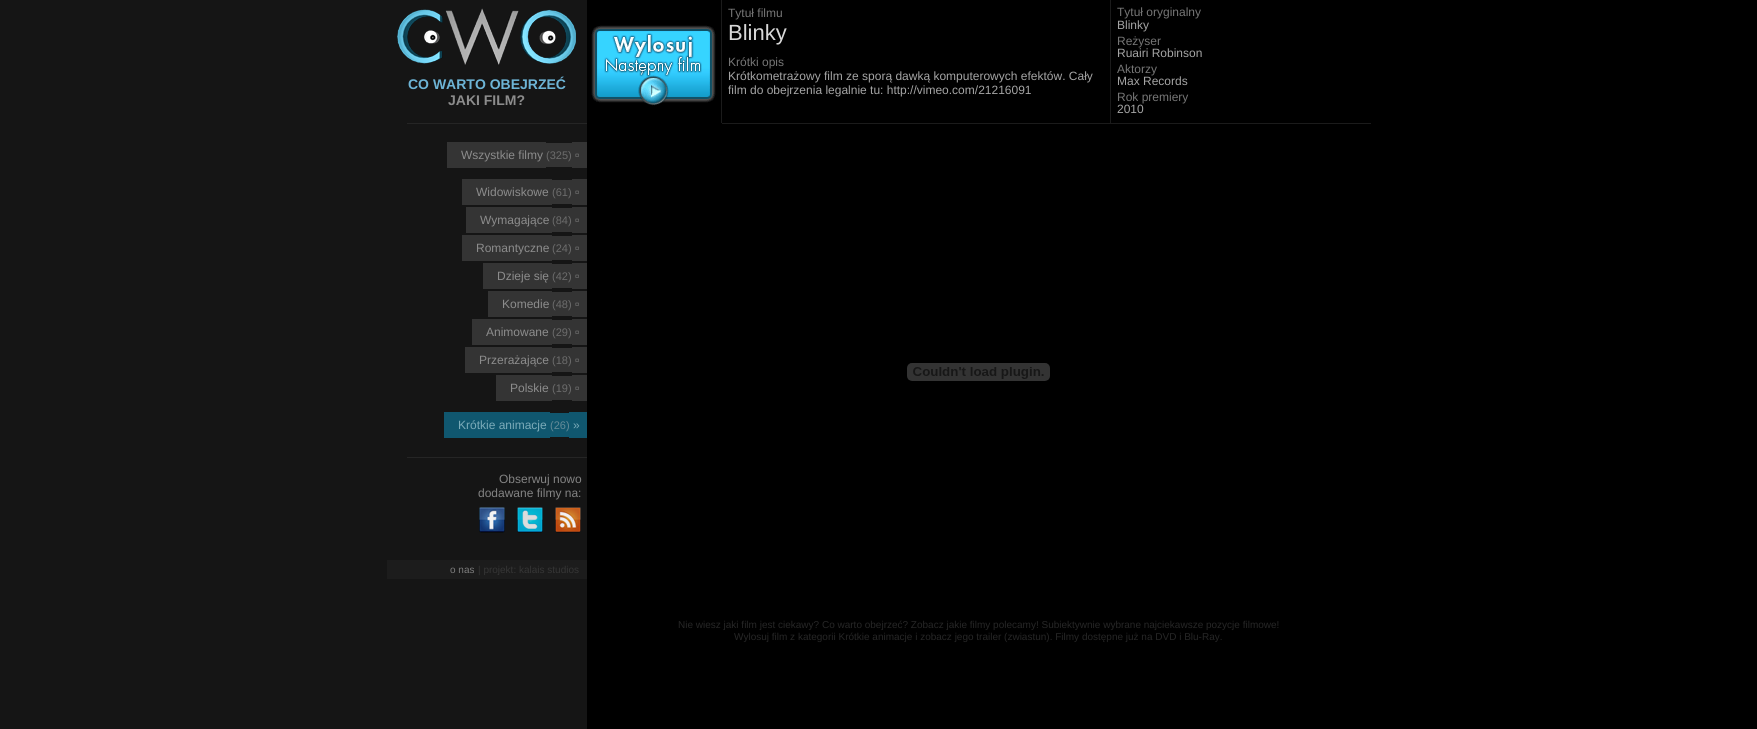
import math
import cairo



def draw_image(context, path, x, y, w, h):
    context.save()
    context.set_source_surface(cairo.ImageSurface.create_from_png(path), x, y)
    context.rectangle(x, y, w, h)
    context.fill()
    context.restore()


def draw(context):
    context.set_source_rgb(0, 0, 0)
    context.paint()
    context.set_source_rgb(21 / 255, 21 / 255, 21 / 255)
    context.rectangle(0, 0, 587, 729)
    context.fill()
    draw_image(context, "images/1.png", 397, 8, 179, 57)
    context.set_source_rgb(37 / 255, 37 / 255, 37 / 255)
    context.rectangle(407, 123, 180, 1)
    context.fill()
    context.set_source_rgb(52 / 255, 52 / 255, 52 / 255)
    context.rectangle(447, 142, 99, 26)
    context.fill()
    context.rectangle(546, 143, 26, 24)
    context.fill()
    context.rectangle(572, 142, 15, 26)
    context.fill()
    context.rectangle(462, 179, 90, 26)
    context.fill()
    context.rectangle(552, 180, 20, 24)
    context.fill()
    context.rectangle(572, 179, 15, 26)
    context.fill()
    context.rectangle(466, 207, 86, 26)
    context.fill()
    context.rectangle(552, 208, 20, 24)
    context.fill()
    context.rectangle(572, 207, 15, 26)
    context.fill()
    context.rectangle(462, 235, 90, 26)
    context.fill()
    context.rectangle(552, 236, 20, 24)
    context.fill()
    context.rectangle(572, 235, 15, 26)
    context.fill()
    context.rectangle(483, 263, 69, 26)
    context.fill()
    context.rectangle(552, 264, 20, 24)
    context.fill()
    context.rectangle(572, 263, 15, 26)
    context.fill()
    context.rectangle(488, 291, 64, 26)
    context.fill()
    context.rectangle(552, 292, 20, 24)
    context.fill()
    context.rectangle(572, 291, 15, 26)
    context.fill()
    context.rectangle(472, 319, 80, 26)
    context.fill()
    context.rectangle(552, 320, 20, 24)
    context.fill()
    context.rectangle(572, 319, 15, 26)
    context.fill()
    context.rectangle(465, 347, 87, 26)
    context.fill()
    context.rectangle(552, 348, 20, 24)
    context.fill()
    context.rectangle(572, 347, 15, 26)
    context.fill()
    context.rectangle(496, 375, 56, 26)
    context.fill()
    context.rectangle(552, 376, 20, 24)
    context.fill()
    context.rectangle(572, 375, 15, 26)
    context.fill()
    context.set_source_rgb(16 / 255, 87 / 255, 111 / 255)
    context.rectangle(444, 412, 106, 26)
    context.fill()
    context.rectangle(550, 413, 19, 24)
    context.fill()
    context.rectangle(569, 412, 18, 26)
    context.fill()
    context.set_source_rgb(37 / 255, 37 / 255, 37 / 255)
    context.rectangle(407, 457, 180, 1)
    context.fill()
    draw_image(context, "images/2.png", 479, 507, 26, 26)
    draw_image(context, "images/3.png", 517, 507, 26, 26)
    draw_image(context, "images/4.png", 555, 507, 26, 26)
    context.set_source_rgb(28 / 255, 28 / 255, 28 / 255)
    context.rectangle(387, 560, 200, 19)
    context.fill()
    draw_image(context, "images/5.png", 591, 25, 125, 81)
    context.set_source_rgb(27 / 255, 27 / 255, 27 / 255)
    context.rectangle(721, 0, 1, 123)
    context.fill()
    context.rectangle(1110, 0, 1, 123)
    context.fill()
    context.rectangle(722, 123, 649, 1)
    context.fill()
    draw_image(context, "images/6.png", 907, 363, 143, 18)
    context.select_font_face("Liberation Sans", cairo.FontSlant.NORMAL, cairo.FontWeight.BOLD)
    context.set_font_size(14)
    context.set_source_rgb(109 / 255, 180 / 255, 214 / 255)
    context.move_to(408, 89)
    context.show_text("CO WARTO OBEJRZEĆ")
    context.set_source_rgb(140 / 255, 140 / 255, 140 / 255)
    context.move_to(448, 105)
    context.show_text("JAKI FILM?")
    context.select_font_face("Liberation Sans")
    context.set_font_size(12)
    context.move_to(461, 159)
    context.show_text("Wszystkie filmy")
    context.set_font_size(11)
    context.set_source_rgb(108 / 255, 108 / 255, 108 / 255)
    context.move_to(546, 159)
    context.show_text("(325)")
    context.set_font_size(12)
    context.set_source_rgb(140 / 255, 140 / 255, 140 / 255)
    context.move_to(575, 159)
    context.show_text("▫")
    context.move_to(476, 196)
    context.show_text("Widowiskowe")
    context.set_font_size(11)
    context.set_source_rgb(108 / 255, 108 / 255, 108 / 255)
    context.move_to(552, 196)
    context.show_text("(61)")
    context.set_font_size(12)
    context.set_source_rgb(140 / 255, 140 / 255, 140 / 255)
    context.move_to(575, 196)
    context.show_text("▫")
    context.move_to(480, 224)
    context.show_text("Wymagające")
    context.set_font_size(11)
    context.set_source_rgb(108 / 255, 108 / 255, 108 / 255)
    context.move_to(552, 224)
    context.show_text("(84)")
    context.set_font_size(12)
    context.set_source_rgb(140 / 255, 140 / 255, 140 / 255)
    context.move_to(575, 224)
    context.show_text("▫")
    context.move_to(476, 252)
    context.show_text("Romantyczne")
    context.set_font_size(11)
    context.set_source_rgb(108 / 255, 108 / 255, 108 / 255)
    context.move_to(552, 252)
    context.show_text("(24)")
    context.set_font_size(12)
    context.set_source_rgb(140 / 255, 140 / 255, 140 / 255)
    context.move_to(575, 252)
    context.show_text("▫")
    context.move_to(497, 280)
    context.show_text("Dzieje się")
    context.set_font_size(11)
    context.set_source_rgb(108 / 255, 108 / 255, 108 / 255)
    context.move_to(552, 280)
    context.show_text("(42)")
    context.set_font_size(12)
    context.set_source_rgb(140 / 255, 140 / 255, 140 / 255)
    context.move_to(575, 280)
    context.show_text("▫")
    context.move_to(502, 308)
    context.show_text("Komedie")
    context.set_font_size(11)
    context.set_source_rgb(108 / 255, 108 / 255, 108 / 255)
    context.move_to(552, 308)
    context.show_text("(48)")
    context.set_font_size(12)
    context.set_source_rgb(140 / 255, 140 / 255, 140 / 255)
    context.move_to(575, 308)
    context.show_text("▫")
    context.move_to(486, 336)
    context.show_text("Animowane")
    context.set_font_size(11)
    context.set_source_rgb(108 / 255, 108 / 255, 108 / 255)
    context.move_to(552, 336)
    context.show_text("(29)")
    context.set_font_size(12)
    context.set_source_rgb(140 / 255, 140 / 255, 140 / 255)
    context.move_to(575, 336)
    context.show_text("▫")
    context.move_to(479, 364)
    context.show_text("Przerażające")
    context.set_font_size(11)
    context.set_source_rgb(108 / 255, 108 / 255, 108 / 255)
    context.move_to(552, 364)
    context.show_text("(18)")
    context.set_font_size(12)
    context.set_source_rgb(140 / 255, 140 / 255, 140 / 255)
    context.move_to(575, 364)
    context.show_text("▫")
    context.move_to(510, 392)
    context.show_text("Polskie")
    context.set_font_size(11)
    context.set_source_rgb(108 / 255, 108 / 255, 108 / 255)
    context.move_to(552, 392)
    context.show_text("(19)")
    context.set_font_size(12)
    context.set_source_rgb(140 / 255, 140 / 255, 140 / 255)
    context.move_to(575, 392)
    context.show_text("▫")
    context.set_source_rgb(123 / 255, 171 / 255, 185 / 255)
    context.move_to(458, 429)
    context.show_text("Krótkie animacje")
    context.set_font_size(11)
    context.set_source_rgb(100 / 255, 139 / 255, 152 / 255)
    context.move_to(550, 429)
    context.show_text("(26)")
    context.set_font_size(12)
    context.set_source_rgb(123 / 255, 171 / 255, 185 / 255)
    context.move_to(573, 429)
    context.show_text("»")
    context.set_source_rgb(131 / 255, 131 / 255, 131 / 255)
    context.move_to(499, 483)
    context.show_text("Obserwuj nowo")
    context.move_to(478, 497)
    context.show_text("dodawane filmy na:")
    context.set_font_size(10)
    context.set_source_rgb(124 / 255, 124 / 255, 124 / 255)
    context.move_to(450, 573)
    context.show_text("o nas")
    context.set_source_rgb(53 / 255, 53 / 255, 53 / 255)
    context.move_to(478, 573)
    context.show_text("| projekt: kalais studios")
    context.set_font_size(12)
    context.set_source_rgb(118 / 255, 118 / 255, 118 / 255)
    context.move_to(728, 17)
    context.show_text("Tytuł filmu")
    context.set_font_size(22)
    context.set_source_rgb(216 / 255, 216 / 255, 216 / 255)
    context.move_to(728, 40)
    context.show_text("Blinky")
    context.set_font_size(12)
    context.set_source_rgb(118 / 255, 118 / 255, 118 / 255)
    context.move_to(728, 66)
    context.show_text("Krótki opis")
    context.set_source_rgb(165 / 255, 165 / 255, 165 / 255)
    context.move_to(728, 80)
    context.show_text("Krótkometrażowy film ze sporą dawką komputerowych efektów. Cały")
    context.move_to(728, 94)
    context.show_text("film do obejrzenia legalnie tu: http://vimeo.com/21216091")
    context.set_source_rgb(118 / 255, 118 / 255, 118 / 255)
    context.move_to(1117, 16)
    context.show_text("Tytuł oryginalny")
    context.set_source_rgb(165 / 255, 165 / 255, 165 / 255)
    context.move_to(1117, 29)
    context.show_text("Blinky")
    context.set_source_rgb(118 / 255, 118 / 255, 118 / 255)
    context.move_to(1117, 45)
    context.show_text("Reżyser")
    context.set_source_rgb(165 / 255, 165 / 255, 165 / 255)
    context.move_to(1117, 57)
    context.show_text("Ruairi Robinson")
    context.set_source_rgb(118 / 255, 118 / 255, 118 / 255)
    context.move_to(1117, 73)
    context.show_text("Aktorzy")
    context.set_source_rgb(165 / 255, 165 / 255, 165 / 255)
    context.move_to(1117, 85)
    context.show_text("Max Records")
    context.set_source_rgb(118 / 255, 118 / 255, 118 / 255)
    context.move_to(1117, 101)
    context.show_text("Rok premiery")
    context.set_source_rgb(165 / 255, 165 / 255, 165 / 255)
    context.move_to(1117, 113)
    context.show_text("2010")
    context.set_font_size(10)
    context.set_source_rgb(38 / 255, 38 / 255, 38 / 255)
    context.move_to(678, 628)
    context.show_text("Nie wiesz jaki film jest ciekawy? Co warto obejrzeć? Zobacz jakie filmy polecamy! Subiektywnie wybrane najciekawsze pozycje filmowe!")
    context.move_to(734, 640)
    context.show_text("Wylosuj film z kategorii Krótkie animacje i zobacz jego trailer (zwiastun). Filmy dostępne już na DVD i Blu-Ray.")


surface = cairo.ImageSurface(cairo.Format.RGB24, 1757, 729)
context = cairo.Context(surface)
options = cairo.FontOptions()
options.set_hint_metrics(cairo.HintMetrics.OFF)
options.set_hint_style(cairo.HintStyle.NONE)
context.set_font_options(options)
context.set_miter_limit(4)
draw(context)
surface.write_to_png("out.png")
